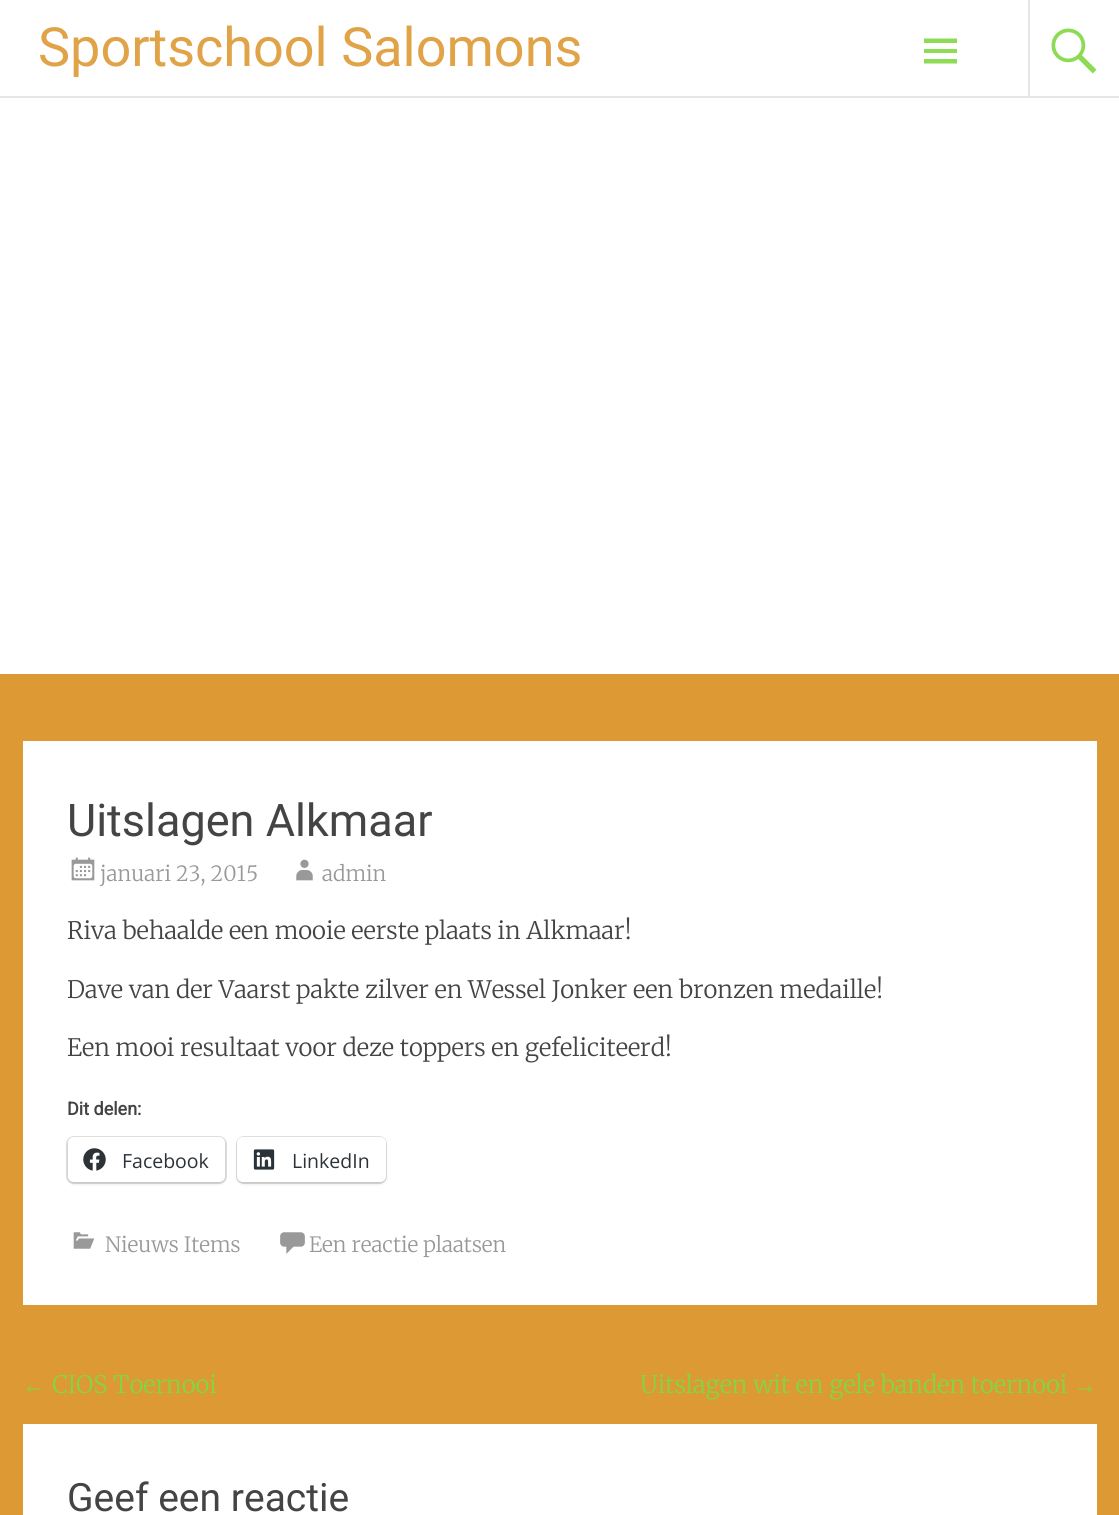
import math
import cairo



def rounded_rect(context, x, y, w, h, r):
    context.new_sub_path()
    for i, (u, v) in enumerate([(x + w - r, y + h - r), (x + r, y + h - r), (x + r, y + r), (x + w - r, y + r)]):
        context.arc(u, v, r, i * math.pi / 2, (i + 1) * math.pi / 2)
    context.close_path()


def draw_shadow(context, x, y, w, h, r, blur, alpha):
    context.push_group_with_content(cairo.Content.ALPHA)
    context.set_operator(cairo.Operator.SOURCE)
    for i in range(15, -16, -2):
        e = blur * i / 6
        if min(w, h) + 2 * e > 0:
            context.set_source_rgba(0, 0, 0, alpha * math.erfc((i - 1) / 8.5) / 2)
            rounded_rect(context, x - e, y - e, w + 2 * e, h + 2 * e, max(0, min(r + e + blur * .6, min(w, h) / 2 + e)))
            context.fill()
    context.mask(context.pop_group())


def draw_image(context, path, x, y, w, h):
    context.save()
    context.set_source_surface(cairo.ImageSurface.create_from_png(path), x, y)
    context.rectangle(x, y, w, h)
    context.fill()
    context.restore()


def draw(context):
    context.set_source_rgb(1, 1, 1)
    context.paint()
    context.set_source_rgb(228 / 255, 231 / 255, 233 / 255)
    context.rectangle(0, 96, 1119, 2)
    context.fill()
    context.set_source_rgb(142 / 255, 219 / 255, 85 / 255)
    context.new_path()
    context.move_to(924, 63.5)
    context.line_to(924, 59)
    context.line_to(957, 59)
    context.line_to(957, 63.5)
    context.close_path()
    context.move_to(924, 38.5)
    context.line_to(957, 38.5)
    context.line_to(957, 43)
    context.line_to(924, 43)
    context.close_path()
    context.move_to(924, 53)
    context.line_to(924, 49)
    context.line_to(957, 49)
    context.line_to(957, 53)
    context.close_path()
    context.fill()
    context.set_source_rgb(228 / 255, 231 / 255, 233 / 255)
    context.rectangle(1028, 0, 2, 96)
    context.fill()
    draw_image(context, "images/1.png", 1051, 28, 46, 46)
    context.set_source_rgb(221 / 255, 153 / 255, 51 / 255)
    context.rectangle(0, 674, 1119, 841)
    context.fill()
    context.set_source_rgb(1, 1, 1)
    context.rectangle(23, 741, 1074, 564)
    context.fill()
    draw_image(context, "images/2.png", 71, 857, 24, 24)
    draw_image(context, "images/3.png", 296, 859, 17, 22)
    rounded_rect(context, 67, 1137, 159, 46, 7)
    context.set_source_rgb(224 / 255, 224 / 255, 224 / 255)
    context.stroke()
    context.set_source_rgb(0, 0, 0)
    draw_shadow(context, 68, 1139, 157, 45, 6, 1.5, 0.12)
    context.set_source_rgb(1, 1, 1)
    rounded_rect(context, 68, 1137, 157, 45, 6)
    context.fill()
    draw_image(context, "images/4.png", 83, 1148, 23, 23)
    rounded_rect(context, 237, 1137, 149, 46, 7)
    context.set_source_rgb(224 / 255, 224 / 255, 224 / 255)
    context.stroke()
    context.set_source_rgb(0, 0, 0)
    draw_shadow(context, 237, 1139, 149, 45, 6, 1.5, 0.12)
    context.set_source_rgb(1, 1, 1)
    rounded_rect(context, 237, 1137, 149, 45, 6)
    context.fill()
    draw_image(context, "images/5.png", 253, 1149, 22, 21)
    draw_image(context, "images/6.png", 73, 1232, 22, 17)
    draw_image(context, "images/7.png", 280, 1232, 25, 22)
    context.rectangle(23, 1424, 1074, 91)
    context.fill()
    context.select_font_face("Roboto")
    context.set_font_size(54)
    context.set_source_rgb(224 / 255, 163 / 255, 71 / 255)
    context.move_to(38, 66)
    context.show_text("Sportschool Salomons")
    context.set_font_size(45)
    context.set_source_rgb(68 / 255, 68 / 255, 68 / 255)
    context.move_to(67, 836)
    context.show_text("Uitslagen Alkmaar")
    context.select_font_face("Merriweather Light")
    context.set_font_size(21)
    context.set_source_rgb(153 / 255, 153 / 255, 153 / 255)
    context.move_to(100, 881)
    context.show_text("januari 23, 2015")
    context.move_to(322, 881)
    context.show_text("admin")
    context.set_font_size(24)
    context.set_source_rgb(68 / 255, 68 / 255, 68 / 255)
    context.move_to(67, 939)
    context.show_text("Riva behaalde een mooie eerste plaats in Alkmaar!")
    context.move_to(67, 998)
    context.show_text("Dave van der Vaarst pakte zilver en Wessel Jonker een bronzen medaille!")
    context.move_to(67, 1056)
    context.show_text("Een mooi resultaat voor deze toppers en gefeliciteerd!")
    context.select_font_face("Roboto", cairo.FontSlant.NORMAL, cairo.FontWeight.BOLD)
    context.set_font_size(18)
    context.move_to(67, 1115)
    context.show_text("Dit delen:")
    context.select_font_face("Open Sans")
    context.set_font_size(19.5)
    context.set_source_rgb(44 / 255, 51 / 255, 56 / 255)
    context.move_to(122, 1168)
    context.show_text("Facebook")
    context.move_to(292, 1168)
    context.show_text("LinkedIn")
    context.select_font_face("Merriweather Light")
    context.set_font_size(21)
    context.set_source_rgb(153 / 255, 153 / 255, 153 / 255)
    context.move_to(105, 1252)
    context.show_text("Nieuws Items")
    context.move_to(309, 1252)
    context.show_text("Een reactie plaatsen")
    context.select_font_face("Liberation Serif")
    context.set_font_size(24)
    context.set_source_rgb(129 / 255, 215 / 255, 66 / 255)
    context.move_to(22, 1393)
    context.show_text("←")
    context.select_font_face("Merriweather Light")
    context.move_to(52, 1393)
    context.show_text("CIOS Toernooi")
    context.move_to(640, 1393)
    context.show_text("Uitslagen wit en gele banden toernooi")
    context.select_font_face("Liberation Serif")
    context.move_to(1073, 1393)
    context.show_text("→")
    context.select_font_face("Roboto")
    context.set_font_size(39)
    context.set_source_rgb(68 / 255, 68 / 255, 68 / 255)
    context.move_to(67, 1511)
    context.show_text("Geef een reactie")


surface = cairo.ImageSurface(cairo.Format.RGB24, 1119, 1515)
context = cairo.Context(surface)
options = cairo.FontOptions()
options.set_hint_metrics(cairo.HintMetrics.OFF)
options.set_hint_style(cairo.HintStyle.NONE)
context.set_font_options(options)
context.set_miter_limit(4)
draw(context)
surface.write_to_png("out.png")
